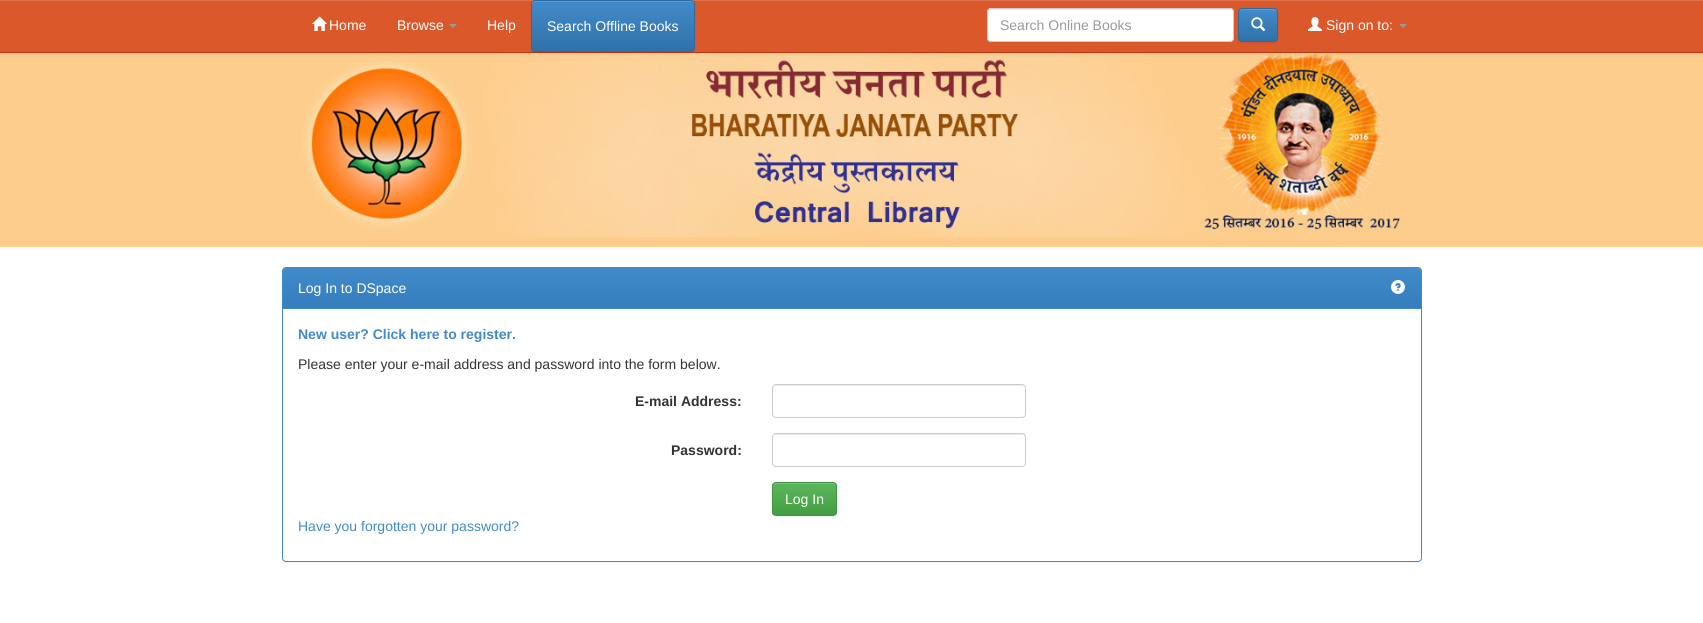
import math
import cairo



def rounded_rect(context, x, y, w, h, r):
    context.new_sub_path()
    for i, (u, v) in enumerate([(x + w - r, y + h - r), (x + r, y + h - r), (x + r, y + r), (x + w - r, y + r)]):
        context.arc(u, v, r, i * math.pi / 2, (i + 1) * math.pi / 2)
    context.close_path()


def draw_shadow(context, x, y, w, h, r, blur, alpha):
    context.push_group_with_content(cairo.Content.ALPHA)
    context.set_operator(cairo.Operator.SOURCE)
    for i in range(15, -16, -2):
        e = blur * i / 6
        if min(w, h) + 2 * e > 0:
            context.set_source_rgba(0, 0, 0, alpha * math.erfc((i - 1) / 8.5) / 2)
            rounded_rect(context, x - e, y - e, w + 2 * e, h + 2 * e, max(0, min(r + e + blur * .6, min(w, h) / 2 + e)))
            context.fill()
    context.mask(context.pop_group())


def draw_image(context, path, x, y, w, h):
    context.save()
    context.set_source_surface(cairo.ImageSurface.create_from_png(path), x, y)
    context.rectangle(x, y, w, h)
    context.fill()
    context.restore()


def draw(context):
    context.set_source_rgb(1, 1, 1)
    context.paint()
    context.set_source_rgb(253 / 255, 205 / 255, 140 / 255)
    context.rectangle(0, 53, 1703, 194)
    context.fill()
    draw_image(context, "images/4.png", 282, 53, 1139, 184)
    context.set_source_rgb(0, 0, 0)
    draw_shadow(context, 0, 1, 1703, 53, 0, 2.5, 0.07)
    context.set_source_rgb(219 / 255, 88 / 255, 42 / 255)
    context.rectangle(0, 1, 1703, 51)
    context.fill()
    context.set_source_rgb(224 / 255, 113 / 255, 74 / 255)
    context.rectangle(0, 0, 1703, 1)
    context.fill()
    context.set_source_rgb(183 / 255, 58 / 255, 17 / 255)
    context.rectangle(0, 52, 1703, 1)
    context.fill()
    draw_image(context, "images/1.png", 312, 16, 15, 15)
    context.set_source_rgb(153 / 255, 153 / 255, 153 / 255)
    context.new_path()
    context.move_to(449, 24)
    context.line_to(457, 24)
    context.line_to(453, 28)
    context.close_path()
    context.fill()
    context.set_source_rgb(0, 0, 0)
    draw_shadow(context, 531, 1, 164, 52, 4, 0.5, 0.07)
    context.save()
    rounded_rect(context, 531, 0, 164, 52, 4)
    context.clip()
    gradient = cairo.LinearGradient(613, 1, 613, 51)
    gradient.add_color_stop_rgba(0, 66 / 255, 139 / 255, 202 / 255, 1)
    gradient.add_color_stop_rgba(1, 48 / 255, 113 / 255, 169 / 255, 1)
    context.set_source(gradient)
    context.rectangle(531, 1, 164, 50)
    context.fill()
    context.restore()
    context.set_source_rgb(94 / 255, 156 / 255, 210 / 255)
    context.new_path()
    context.move_to(535, 2)
    context.line_to(691, 2)
    context.curve_to(693, 2, 694, 3, 694, 5)
    context.curve_to(694, 3, 693, 1, 691, 1)
    context.line_to(534, 1)
    context.curve_to(532, 1, 532, 3, 532, 5)
    context.curve_to(532, 3, 533, 2, 535, 2)
    context.close_path()
    context.fill()
    rounded_rect(context, 531.5, 0.5, 163, 51, 3.5)
    context.set_source_rgb(45 / 255, 108 / 255, 162 / 255)
    context.set_line_width(1)
    context.stroke()
    context.set_source_rgb(1, 1, 1)
    rounded_rect(context, 987, 8, 247, 34, 4)
    context.fill()
    context.set_source_rgb(236 / 255, 236 / 255, 236 / 255)
    context.new_path()
    context.move_to(991, 10)
    context.line_to(1231, 10)
    context.line_to(1233, 11)
    context.line_to(1233, 13)
    context.curve_to(1233, 11, 1232, 9, 1230, 9)
    context.line_to(991, 9)
    context.curve_to(989, 9, 988, 11, 988, 13)
    context.curve_to(988, 11, 989, 10, 991, 10)
    context.close_path()
    context.fill()
    rounded_rect(context, 987.5, 8.5, 246, 33, 3.5)
    context.set_source_rgb(204 / 255, 204 / 255, 204 / 255)
    context.stroke()
    context.set_source_rgb(0, 0, 0)
    draw_shadow(context, 1238, 9, 40, 34, 4, 0.5, 0.07)
    context.save()
    rounded_rect(context, 1238, 8, 40, 34, 4)
    context.clip()
    gradient = cairo.LinearGradient(1258, 9, 1258, 41)
    gradient.add_color_stop_rgba(0, 66 / 255, 139 / 255, 202 / 255, 1)
    gradient.add_color_stop_rgba(1, 48 / 255, 113 / 255, 169 / 255, 1)
    context.set_source(gradient)
    context.rectangle(1238, 9, 40, 32)
    context.fill()
    context.restore()
    context.set_source_rgb(94 / 255, 156 / 255, 209 / 255)
    context.new_path()
    context.move_to(1242, 10)
    context.line_to(1269, 10)
    context.curve_to(1274.5, 10, 1276.5, 10.5, 1277, 12.5)
    context.curve_to(1277, 7.5, 1272.5, 9, 1268.5, 9)
    context.line_to(1247.5, 9)
    context.curve_to(1244, 9, 1239, 8, 1239, 12.5)
    context.curve_to(1239.5, 11, 1240.5, 10, 1242, 10)
    context.close_path()
    context.fill()
    rounded_rect(context, 1238.5, 8.5, 39, 33, 3.5)
    context.set_source_rgb(45 / 255, 108 / 255, 162 / 255)
    context.stroke()
    draw_image(context, "images/2.png", 1251, 17, 15, 15)
    draw_image(context, "images/3.png", 1308, 17, 14, 14)
    context.set_source_rgb(153 / 255, 153 / 255, 153 / 255)
    context.new_path()
    context.move_to(1399, 24)
    context.line_to(1407, 24)
    context.line_to(1403, 28)
    context.close_path()
    context.fill()
    context.set_source_rgb(0, 0, 0)
    draw_shadow(context, 282, 268, 1140, 295, 4, 1, 0.05)
    context.set_source_rgb(1, 1, 1)
    rounded_rect(context, 282.5, 267.5, 1139, 294, 3.5)
    context.fill_preserve()
    context.set_source_rgb(66 / 255, 139 / 255, 202 / 255)
    context.stroke()
    context.new_path()
    context.move_to(286, 268)
    context.line_to(1418, 268)
    context.curve_to(1419.5, 268, 1421, 269.5, 1421, 271)
    context.line_to(1421, 309)
    context.line_to(283, 309)
    context.line_to(283, 271)
    context.curve_to(283, 269.5, 284.5, 268, 286, 268)
    context.close_path()
    context.fill()
    gradient = cairo.LinearGradient(852, 268, 852, 308)
    gradient.add_color_stop_rgba(0, 66 / 255, 139 / 255, 202 / 255, 1)
    gradient.add_color_stop_rgba(1, 53 / 255, 126 / 255, 189 / 255, 1)
    context.set_source(gradient)
    context.new_path()
    context.move_to(286, 268)
    context.line_to(1418, 268)
    context.curve_to(1419.5, 268, 1421, 269.5, 1421, 271)
    context.line_to(1421, 308)
    context.line_to(283, 308)
    context.line_to(283, 271)
    context.curve_to(283, 269.5, 284.5, 268, 286, 268)
    context.close_path()
    context.fill()
    draw_image(context, "images/5.png", 1391, 280, 14, 14)
    context.set_source_rgb(236 / 255, 236 / 255, 236 / 255)
    context.new_path()
    context.move_to(776, 386)
    context.line_to(1023, 386)
    context.line_to(1025, 387)
    context.line_to(1025, 389)
    context.curve_to(1025, 387, 1024, 385, 1022, 385)
    context.line_to(776, 385)
    context.curve_to(774, 385, 773, 387, 773, 389)
    context.curve_to(773, 387, 774, 386, 776, 386)
    context.close_path()
    context.fill()
    rounded_rect(context, 772.5, 384.5, 253, 33, 3.5)
    context.set_source_rgb(204 / 255, 204 / 255, 204 / 255)
    context.stroke()
    context.set_source_rgb(236 / 255, 236 / 255, 236 / 255)
    context.new_path()
    context.move_to(776, 435)
    context.line_to(1023, 435)
    context.line_to(1025, 436)
    context.line_to(1025, 438)
    context.curve_to(1025, 436, 1024, 434, 1022, 434)
    context.line_to(776, 434)
    context.curve_to(774, 434, 773, 436, 773, 438)
    context.curve_to(773, 436, 774, 435, 776, 435)
    context.close_path()
    context.fill()
    rounded_rect(context, 772.5, 433.5, 253, 33, 3.5)
    context.set_source_rgb(204 / 255, 204 / 255, 204 / 255)
    context.stroke()
    context.set_source_rgb(0, 0, 0)
    draw_shadow(context, 772, 483, 65, 34, 4, 0.5, 0.07)
    context.save()
    rounded_rect(context, 772, 482, 65, 34, 4)
    context.clip()
    gradient = cairo.LinearGradient(805, 483, 805, 515)
    gradient.add_color_stop_rgba(0, 92 / 255, 184 / 255, 92 / 255, 1)
    gradient.add_color_stop_rgba(1, 68 / 255, 157 / 255, 68 / 255, 1)
    context.set_source(gradient)
    context.rectangle(772, 483, 65, 32)
    context.fill()
    context.restore()
    context.set_source_rgb(116 / 255, 195 / 255, 116 / 255)
    context.new_path()
    context.move_to(776, 484)
    context.line_to(833, 484)
    context.curve_to(835, 484, 836, 485, 836, 487)
    context.curve_to(836, 481, 828, 483, 824, 483)
    context.line_to(786, 483)
    context.curve_to(781, 483, 773, 481, 773, 487)
    context.curve_to(773, 485, 774, 484, 776, 484)
    context.close_path()
    context.fill()
    rounded_rect(context, 772.5, 482.5, 64, 33, 3.5)
    context.set_source_rgb(65 / 255, 150 / 255, 65 / 255)
    context.stroke()
    context.select_font_face("Liberation Sans")
    context.set_font_size(14)
    context.set_source_rgb(1, 1, 1)
    context.move_to(329, 30)
    context.show_text("Home")
    context.move_to(397, 30)
    context.show_text("Browse")
    context.move_to(487, 30)
    context.show_text("Help")
    context.move_to(547, 31)
    context.show_text("Search Offline Books")
    context.set_source_rgb(153 / 255, 153 / 255, 153 / 255)
    context.move_to(1000, 30)
    context.show_text("Search Online Books")
    context.set_source_rgb(1, 1, 1)
    context.move_to(1326, 30)
    context.show_text("Sign on to:")
    context.move_to(298, 293)
    context.show_text("Log In to DSpace")
    context.select_font_face("Liberation Sans", cairo.FontSlant.NORMAL, cairo.FontWeight.BOLD)
    context.set_source_rgb(66 / 255, 139 / 255, 202 / 255)
    context.move_to(298, 339)
    context.show_text("New user? Click here to register.")
    context.select_font_face("Liberation Sans")
    context.set_source_rgb(51 / 255, 51 / 255, 51 / 255)
    context.move_to(298, 369)
    context.show_text("Please enter your e-mail address and password into the form below.")
    context.select_font_face("Liberation Sans", cairo.FontSlant.NORMAL, cairo.FontWeight.BOLD)
    context.move_to(635, 406)
    context.show_text("E-mail Address:")
    context.move_to(671, 455)
    context.show_text("Password:")
    context.select_font_face("Liberation Sans")
    context.set_source_rgb(1, 1, 1)
    context.move_to(785, 504)
    context.show_text("Log In")
    context.set_source_rgb(66 / 255, 139 / 255, 202 / 255)
    context.move_to(298, 531)
    context.show_text("Have you forgotten your password?")


surface = cairo.ImageSurface(cairo.Format.RGB24, 1703, 623)
context = cairo.Context(surface)
options = cairo.FontOptions()
options.set_hint_metrics(cairo.HintMetrics.OFF)
options.set_hint_style(cairo.HintStyle.NONE)
context.set_font_options(options)
context.set_miter_limit(4)
draw(context)
surface.write_to_png("out.png")
